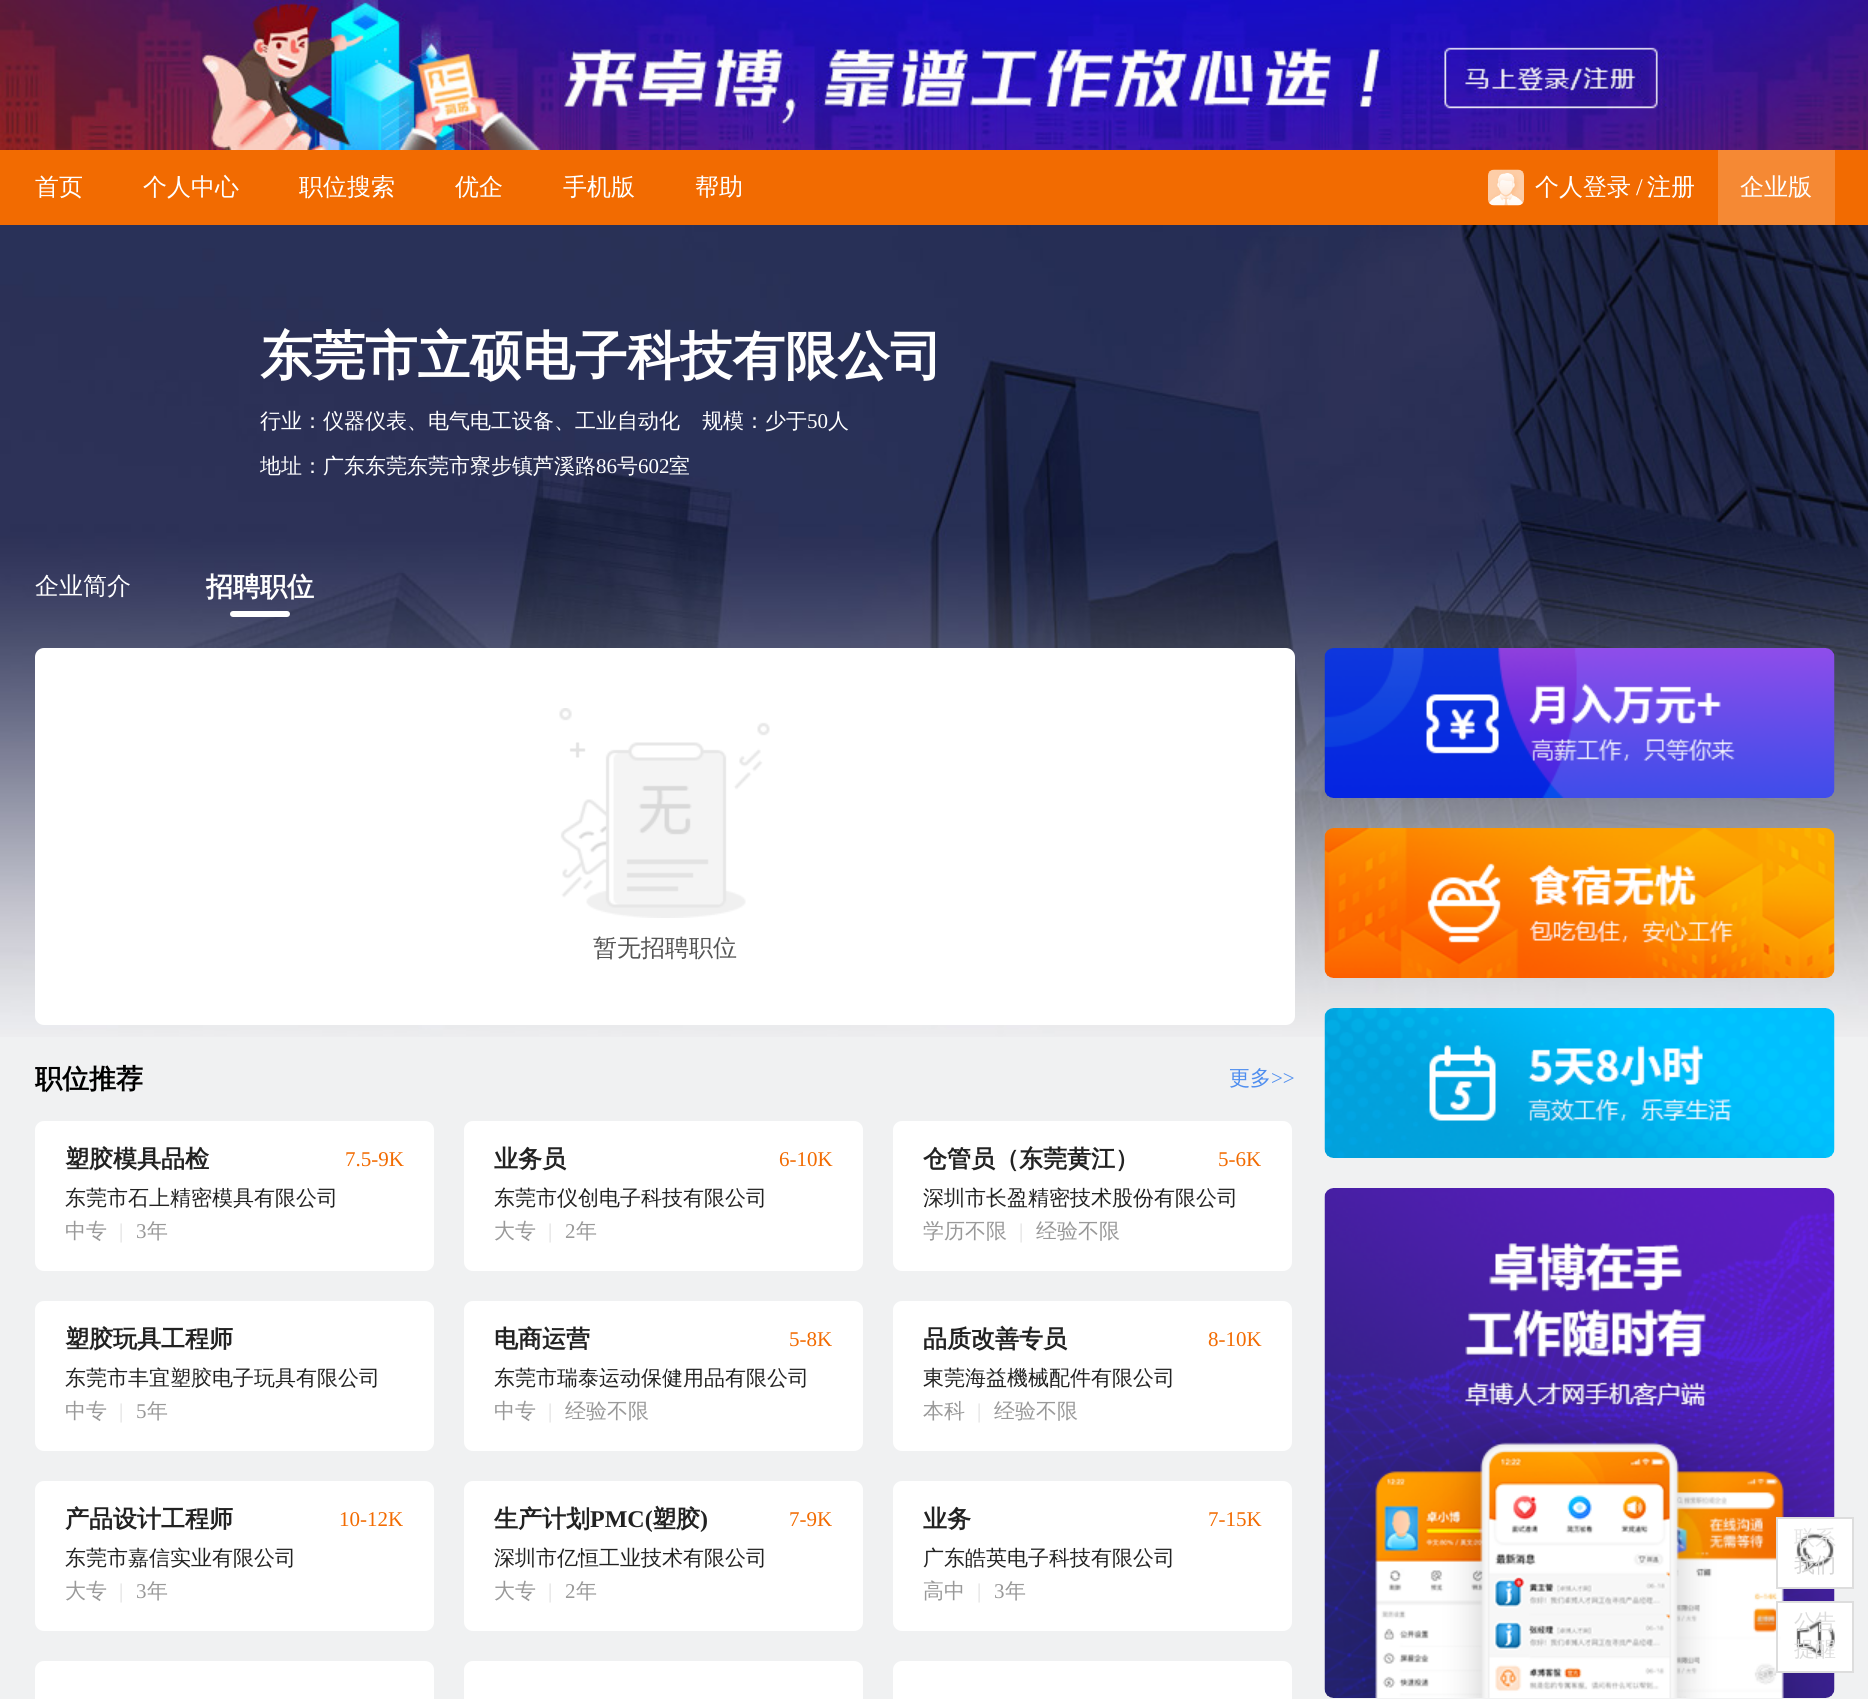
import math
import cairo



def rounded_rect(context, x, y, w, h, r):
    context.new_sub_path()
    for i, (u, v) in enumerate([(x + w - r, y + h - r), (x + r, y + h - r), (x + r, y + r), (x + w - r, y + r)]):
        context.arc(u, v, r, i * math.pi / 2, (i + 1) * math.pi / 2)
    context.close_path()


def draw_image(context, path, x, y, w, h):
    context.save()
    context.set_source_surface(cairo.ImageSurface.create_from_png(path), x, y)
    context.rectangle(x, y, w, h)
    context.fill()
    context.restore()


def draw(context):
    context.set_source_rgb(240 / 255, 241 / 255, 242 / 255)
    context.paint()
    draw_image(context, "images/1.png", 0, 0, 1868, 150)
    context.set_source_rgb(242 / 255, 107 / 255, 1 / 255)
    context.rectangle(0, 150, 1868, 75)
    context.fill()
    draw_image(context, "images/2.png", 1488, 169, 36, 37)
    context.set_source_rgb(245 / 255, 137 / 255, 52 / 255)
    context.rectangle(1718, 150, 117, 75)
    context.fill()
    draw_image(context, "images/3.png", 0, 225, 1868, 812)
    context.set_source_rgb(1, 1, 1)
    rounded_rect(context, 230, 611, 60, 6, 3)
    context.fill()
    rounded_rect(context, 35, 648, 1260, 377, 9)
    context.fill()
    draw_image(context, "images/4.png", 559, 708, 211, 210)
    rounded_rect(context, 35, 1121, 399, 150, 9)
    context.fill()
    rounded_rect(context, 464, 1121, 399, 150, 9)
    context.fill()
    rounded_rect(context, 893, 1121, 399, 150, 9)
    context.fill()
    rounded_rect(context, 35, 1301, 399, 150, 9)
    context.fill()
    rounded_rect(context, 464, 1301, 399, 150, 9)
    context.fill()
    rounded_rect(context, 893, 1301, 399, 150, 9)
    context.fill()
    rounded_rect(context, 35, 1481, 399, 150, 9)
    context.fill()
    rounded_rect(context, 464, 1481, 399, 150, 9)
    context.fill()
    rounded_rect(context, 893, 1481, 399, 150, 9)
    context.fill()
    rounded_rect(context, 35, 1661, 399, 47, 9)
    context.fill()
    rounded_rect(context, 464, 1661, 399, 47, 9)
    context.fill()
    rounded_rect(context, 893, 1661, 399, 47, 9)
    context.fill()
    draw_image(context, "images/5.png", 1324, 648, 511, 150)
    draw_image(context, "images/6.png", 1324, 828, 511, 150)
    draw_image(context, "images/7.png", 1324, 1008, 511, 150)
    draw_image(context, "images/8.png", 1324, 1188, 511, 510)
    context.rectangle(1778, 1519, 74, 68)
    context.fill()
    draw_image(context, "images/9.png", 1796, 1533, 38, 39)
    context.rectangle(1777, 1518, 76, 70)
    context.set_source_rgb(221 / 255, 221 / 255, 221 / 255)
    context.stroke()
    context.set_source_rgb(1, 1, 1)
    context.rectangle(1781, 1603, 71, 68)
    context.fill()
    draw_image(context, "images/10.png", 1796, 1619, 39, 38)
    context.rectangle(1777, 1602, 76, 70)
    context.set_source_rgb(221 / 255, 221 / 255, 221 / 255)
    context.stroke()
    context.select_font_face("WenQuanYi Zen Hei Medium")
    context.set_font_size(24)
    context.set_source_rgb(1, 1, 1)
    context.move_to(35, 195)
    context.show_text("首页")
    context.move_to(143, 195)
    context.show_text("个人中心")
    context.move_to(299, 195)
    context.show_text("职位搜索")
    context.move_to(455, 195)
    context.show_text("优企")
    context.move_to(563, 195)
    context.show_text("手机版")
    context.move_to(695, 195)
    context.show_text("帮助")
    context.move_to(1535, 195)
    context.show_text("个人登录")
    context.select_font_face("Liberation Serif")
    context.move_to(1636, 195)
    context.show_text("/")
    context.select_font_face("WenQuanYi Zen Hei Medium")
    context.move_to(1647, 195)
    context.show_text("注册")
    context.move_to(1740, 195)
    context.show_text("企业版")
    context.select_font_face("WenQuanYi Zen Hei", cairo.FontSlant.NORMAL, cairo.FontWeight.BOLD)
    context.set_font_size(52.5)
    context.move_to(260, 374)
    context.show_text("东莞市立硕电子科技有限公司")
    context.select_font_face("WenQuanYi Zen Hei Medium")
    context.set_font_size(21)
    context.move_to(260, 428)
    context.show_text("行业：仪器仪表、电气电工设备、工业自动化")
    context.move_to(702, 428)
    context.show_text("规模：少于")
    context.select_font_face("Liberation Serif")
    context.move_to(807, 428)
    context.show_text("50")
    context.select_font_face("WenQuanYi Zen Hei Medium")
    context.move_to(828, 428)
    context.show_text("人")
    context.move_to(260, 473)
    context.show_text("地址：广东东莞东莞市寮步镇芦溪路")
    context.select_font_face("Liberation Serif")
    context.move_to(596, 473)
    context.show_text("86")
    context.select_font_face("WenQuanYi Zen Hei Medium")
    context.move_to(617, 473)
    context.show_text("号")
    context.select_font_face("Liberation Serif")
    context.move_to(638, 473)
    context.show_text("602")
    context.select_font_face("WenQuanYi Zen Hei Medium")
    context.move_to(669, 473)
    context.show_text("室")
    context.set_font_size(24)
    context.move_to(35, 594)
    context.show_text("企业简介")
    context.select_font_face("WenQuanYi Zen Hei", cairo.FontSlant.NORMAL, cairo.FontWeight.BOLD)
    context.set_font_size(27)
    context.move_to(206, 596)
    context.show_text("招聘职位")
    context.select_font_face("WenQuanYi Zen Hei Medium")
    context.set_font_size(24)
    context.set_source_rgb(85 / 255, 85 / 255, 85 / 255)
    context.move_to(593, 956)
    context.show_text("暂无招聘职位")
    context.select_font_face("WenQuanYi Zen Hei", cairo.FontSlant.NORMAL, cairo.FontWeight.BOLD)
    context.set_font_size(27)
    context.set_source_rgb(0, 0, 0)
    context.move_to(35, 1088)
    context.show_text("职位推荐")
    context.select_font_face("WenQuanYi Zen Hei Medium")
    context.set_font_size(21)
    context.set_source_rgb(79 / 255, 142 / 255, 239 / 255)
    context.move_to(1229, 1085)
    context.show_text("更多")
    context.select_font_face("Liberation Serif")
    context.move_to(1271, 1085)
    context.show_text(">>")
    context.select_font_face("WenQuanYi Zen Hei", cairo.FontSlant.NORMAL, cairo.FontWeight.BOLD)
    context.set_font_size(24)
    context.set_source_rgb(34 / 255, 34 / 255, 34 / 255)
    context.move_to(65, 1167)
    context.show_text("塑胶模具品检")
    context.select_font_face("Liberation Serif")
    context.set_font_size(21)
    context.set_source_rgb(242 / 255, 107 / 255, 1 / 255)
    context.move_to(345, 1166)
    context.show_text("7.5-9K")
    context.select_font_face("WenQuanYi Zen Hei Medium")
    context.set_source_rgb(34 / 255, 34 / 255, 34 / 255)
    context.move_to(65, 1205)
    context.show_text("东莞市石上精密模具有限公司")
    context.set_source_rgb(153 / 255, 153 / 255, 153 / 255)
    context.move_to(65, 1238)
    context.show_text("中专")
    context.select_font_face("Liberation Serif")
    context.set_source_rgb(221 / 255, 221 / 255, 221 / 255)
    context.move_to(119, 1238)
    context.show_text("|")
    context.set_source_rgb(153 / 255, 153 / 255, 153 / 255)
    context.move_to(136, 1238)
    context.show_text("3")
    context.select_font_face("WenQuanYi Zen Hei Medium")
    context.move_to(147, 1238)
    context.show_text("年")
    context.select_font_face("WenQuanYi Zen Hei", cairo.FontSlant.NORMAL, cairo.FontWeight.BOLD)
    context.set_font_size(24)
    context.set_source_rgb(34 / 255, 34 / 255, 34 / 255)
    context.move_to(494, 1167)
    context.show_text("业务员")
    context.select_font_face("Liberation Serif")
    context.set_font_size(21)
    context.set_source_rgb(242 / 255, 107 / 255, 1 / 255)
    context.move_to(779, 1166)
    context.show_text("6-10K")
    context.select_font_face("WenQuanYi Zen Hei Medium")
    context.set_source_rgb(34 / 255, 34 / 255, 34 / 255)
    context.move_to(494, 1205)
    context.show_text("东莞市仪创电子科技有限公司")
    context.set_source_rgb(153 / 255, 153 / 255, 153 / 255)
    context.move_to(494, 1238)
    context.show_text("大专")
    context.select_font_face("Liberation Serif")
    context.set_source_rgb(221 / 255, 221 / 255, 221 / 255)
    context.move_to(548, 1238)
    context.show_text("|")
    context.set_source_rgb(153 / 255, 153 / 255, 153 / 255)
    context.move_to(565, 1238)
    context.show_text("2")
    context.select_font_face("WenQuanYi Zen Hei Medium")
    context.move_to(576, 1238)
    context.show_text("年")
    context.select_font_face("WenQuanYi Zen Hei", cairo.FontSlant.NORMAL, cairo.FontWeight.BOLD)
    context.set_font_size(24)
    context.set_source_rgb(34 / 255, 34 / 255, 34 / 255)
    context.move_to(923, 1167)
    context.show_text("仓管员（东莞黄江）")
    context.select_font_face("Liberation Serif")
    context.set_font_size(21)
    context.set_source_rgb(242 / 255, 107 / 255, 1 / 255)
    context.move_to(1218, 1166)
    context.show_text("5-6K")
    context.select_font_face("WenQuanYi Zen Hei Medium")
    context.set_source_rgb(34 / 255, 34 / 255, 34 / 255)
    context.move_to(923, 1205)
    context.show_text("深圳市长盈精密技术股份有限公司")
    context.set_source_rgb(153 / 255, 153 / 255, 153 / 255)
    context.move_to(923, 1238)
    context.show_text("学历不限")
    context.select_font_face("Liberation Serif")
    context.set_source_rgb(221 / 255, 221 / 255, 221 / 255)
    context.move_to(1019, 1238)
    context.show_text("|")
    context.select_font_face("WenQuanYi Zen Hei Medium")
    context.set_source_rgb(153 / 255, 153 / 255, 153 / 255)
    context.move_to(1036, 1238)
    context.show_text("经验不限")
    context.select_font_face("WenQuanYi Zen Hei", cairo.FontSlant.NORMAL, cairo.FontWeight.BOLD)
    context.set_font_size(24)
    context.set_source_rgb(34 / 255, 34 / 255, 34 / 255)
    context.move_to(65, 1347)
    context.show_text("塑胶玩具工程师")
    context.select_font_face("WenQuanYi Zen Hei Medium")
    context.set_font_size(21)
    context.move_to(65, 1385)
    context.show_text("东莞市丰宜塑胶电子玩具有限公司")
    context.set_source_rgb(153 / 255, 153 / 255, 153 / 255)
    context.move_to(65, 1418)
    context.show_text("中专")
    context.select_font_face("Liberation Serif")
    context.set_source_rgb(221 / 255, 221 / 255, 221 / 255)
    context.move_to(119, 1418)
    context.show_text("|")
    context.set_source_rgb(153 / 255, 153 / 255, 153 / 255)
    context.move_to(136, 1418)
    context.show_text("5")
    context.select_font_face("WenQuanYi Zen Hei Medium")
    context.move_to(147, 1418)
    context.show_text("年")
    context.select_font_face("WenQuanYi Zen Hei", cairo.FontSlant.NORMAL, cairo.FontWeight.BOLD)
    context.set_font_size(24)
    context.set_source_rgb(34 / 255, 34 / 255, 34 / 255)
    context.move_to(494, 1347)
    context.show_text("电商运营")
    context.select_font_face("Liberation Serif")
    context.set_font_size(21)
    context.set_source_rgb(242 / 255, 107 / 255, 1 / 255)
    context.move_to(789, 1346)
    context.show_text("5-8K")
    context.select_font_face("WenQuanYi Zen Hei Medium")
    context.set_source_rgb(34 / 255, 34 / 255, 34 / 255)
    context.move_to(494, 1385)
    context.show_text("东莞市瑞泰运动保健用品有限公司")
    context.set_source_rgb(153 / 255, 153 / 255, 153 / 255)
    context.move_to(494, 1418)
    context.show_text("中专")
    context.select_font_face("Liberation Serif")
    context.set_source_rgb(221 / 255, 221 / 255, 221 / 255)
    context.move_to(548, 1418)
    context.show_text("|")
    context.select_font_face("WenQuanYi Zen Hei Medium")
    context.set_source_rgb(153 / 255, 153 / 255, 153 / 255)
    context.move_to(565, 1418)
    context.show_text("经验不限")
    context.select_font_face("WenQuanYi Zen Hei", cairo.FontSlant.NORMAL, cairo.FontWeight.BOLD)
    context.set_font_size(24)
    context.set_source_rgb(34 / 255, 34 / 255, 34 / 255)
    context.move_to(923, 1347)
    context.show_text("品质改善专员")
    context.select_font_face("Liberation Serif")
    context.set_font_size(21)
    context.set_source_rgb(242 / 255, 107 / 255, 1 / 255)
    context.move_to(1208, 1346)
    context.show_text("8-10K")
    context.select_font_face("WenQuanYi Zen Hei Medium")
    context.set_source_rgb(34 / 255, 34 / 255, 34 / 255)
    context.move_to(923, 1385)
    context.show_text("東莞海益機械配件有限公司")
    context.set_source_rgb(153 / 255, 153 / 255, 153 / 255)
    context.move_to(923, 1418)
    context.show_text("本科")
    context.select_font_face("Liberation Serif")
    context.set_source_rgb(221 / 255, 221 / 255, 221 / 255)
    context.move_to(977, 1418)
    context.show_text("|")
    context.select_font_face("WenQuanYi Zen Hei Medium")
    context.set_source_rgb(153 / 255, 153 / 255, 153 / 255)
    context.move_to(994, 1418)
    context.show_text("经验不限")
    context.select_font_face("WenQuanYi Zen Hei", cairo.FontSlant.NORMAL, cairo.FontWeight.BOLD)
    context.set_font_size(24)
    context.set_source_rgb(34 / 255, 34 / 255, 34 / 255)
    context.move_to(65, 1527)
    context.show_text("产品设计工程师")
    context.select_font_face("Liberation Serif")
    context.set_font_size(21)
    context.set_source_rgb(242 / 255, 107 / 255, 1 / 255)
    context.move_to(339, 1526)
    context.show_text("10-12K")
    context.select_font_face("WenQuanYi Zen Hei Medium")
    context.set_source_rgb(34 / 255, 34 / 255, 34 / 255)
    context.move_to(65, 1565)
    context.show_text("东莞市嘉信实业有限公司")
    context.set_source_rgb(153 / 255, 153 / 255, 153 / 255)
    context.move_to(65, 1598)
    context.show_text("大专")
    context.select_font_face("Liberation Serif")
    context.set_source_rgb(221 / 255, 221 / 255, 221 / 255)
    context.move_to(119, 1598)
    context.show_text("|")
    context.set_source_rgb(153 / 255, 153 / 255, 153 / 255)
    context.move_to(136, 1598)
    context.show_text("3")
    context.select_font_face("WenQuanYi Zen Hei Medium")
    context.move_to(147, 1598)
    context.show_text("年")
    context.select_font_face("WenQuanYi Zen Hei", cairo.FontSlant.NORMAL, cairo.FontWeight.BOLD)
    context.set_font_size(24)
    context.set_source_rgb(34 / 255, 34 / 255, 34 / 255)
    context.move_to(494, 1527)
    context.show_text("生产计划")
    context.select_font_face("Liberation Serif", cairo.FontSlant.NORMAL, cairo.FontWeight.BOLD)
    context.move_to(590, 1527)
    context.show_text("PMC(")
    context.select_font_face("WenQuanYi Zen Hei", cairo.FontSlant.NORMAL, cairo.FontWeight.BOLD)
    context.move_to(652, 1527)
    context.show_text("塑胶")
    context.select_font_face("Liberation Serif", cairo.FontSlant.NORMAL, cairo.FontWeight.BOLD)
    context.move_to(700, 1527)
    context.show_text(")")
    context.select_font_face("Liberation Serif")
    context.set_font_size(21)
    context.set_source_rgb(242 / 255, 107 / 255, 1 / 255)
    context.move_to(789, 1526)
    context.show_text("7-9K")
    context.select_font_face("WenQuanYi Zen Hei Medium")
    context.set_source_rgb(34 / 255, 34 / 255, 34 / 255)
    context.move_to(494, 1565)
    context.show_text("深圳市亿恒工业技术有限公司")
    context.set_source_rgb(153 / 255, 153 / 255, 153 / 255)
    context.move_to(494, 1598)
    context.show_text("大专")
    context.select_font_face("Liberation Serif")
    context.set_source_rgb(221 / 255, 221 / 255, 221 / 255)
    context.move_to(548, 1598)
    context.show_text("|")
    context.set_source_rgb(153 / 255, 153 / 255, 153 / 255)
    context.move_to(565, 1598)
    context.show_text("2")
    context.select_font_face("WenQuanYi Zen Hei Medium")
    context.move_to(576, 1598)
    context.show_text("年")
    context.select_font_face("WenQuanYi Zen Hei", cairo.FontSlant.NORMAL, cairo.FontWeight.BOLD)
    context.set_font_size(24)
    context.set_source_rgb(34 / 255, 34 / 255, 34 / 255)
    context.move_to(923, 1527)
    context.show_text("业务")
    context.select_font_face("Liberation Serif")
    context.set_font_size(21)
    context.set_source_rgb(242 / 255, 107 / 255, 1 / 255)
    context.move_to(1208, 1526)
    context.show_text("7-15K")
    context.select_font_face("WenQuanYi Zen Hei Medium")
    context.set_source_rgb(34 / 255, 34 / 255, 34 / 255)
    context.move_to(923, 1565)
    context.show_text("广东皓英电子科技有限公司")
    context.set_source_rgb(153 / 255, 153 / 255, 153 / 255)
    context.move_to(923, 1598)
    context.show_text("高中")
    context.select_font_face("Liberation Serif")
    context.set_source_rgb(221 / 255, 221 / 255, 221 / 255)
    context.move_to(977, 1598)
    context.show_text("|")
    context.set_source_rgb(153 / 255, 153 / 255, 153 / 255)
    context.move_to(994, 1598)
    context.show_text("3")
    context.select_font_face("WenQuanYi Zen Hei Medium")
    context.move_to(1005, 1598)
    context.show_text("年")
    context.set_source_rgb(230 / 255, 230 / 255, 230 / 255)
    context.move_to(1794, 1545)
    context.show_text("联系")
    context.set_source_rgb(214 / 255, 214 / 255, 214 / 255)
    context.move_to(1794, 1572)
    context.show_text("我们")
    context.set_source_rgb(221 / 255, 221 / 255, 221 / 255)
    context.move_to(1794, 1629)
    context.show_text("公告")
    context.move_to(1794, 1656)
    context.show_text("提醒")


surface = cairo.ImageSurface(cairo.Format.RGB24, 1868, 1699)
context = cairo.Context(surface)
options = cairo.FontOptions()
options.set_hint_metrics(cairo.HintMetrics.OFF)
options.set_hint_style(cairo.HintStyle.NONE)
context.set_font_options(options)
context.set_miter_limit(4)
draw(context)
surface.write_to_png("out.png")
